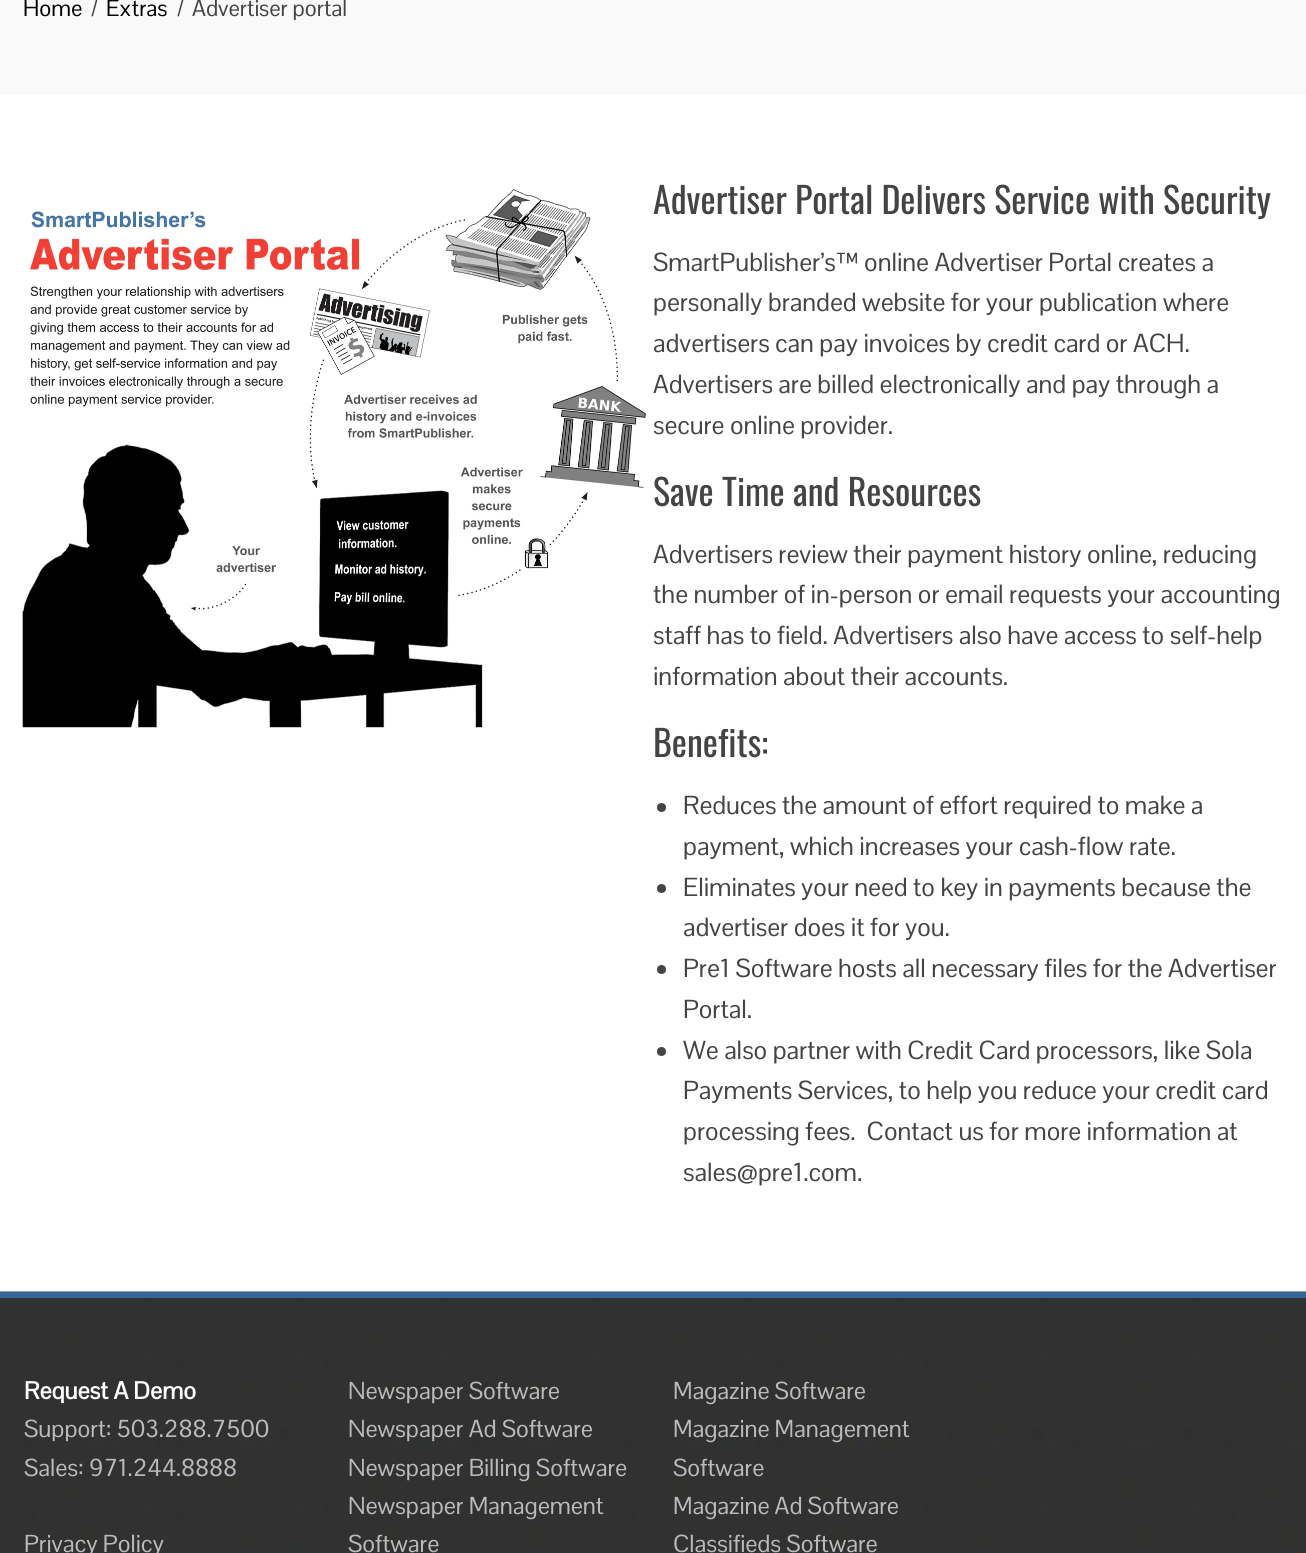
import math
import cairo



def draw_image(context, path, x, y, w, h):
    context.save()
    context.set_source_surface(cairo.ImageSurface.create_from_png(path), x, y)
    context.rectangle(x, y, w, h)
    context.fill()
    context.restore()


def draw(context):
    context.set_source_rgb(1, 1, 1)
    context.paint()
    context.set_source_rgb(249 / 255, 249 / 255, 249 / 255)
    context.rectangle(0, 0, 1306, 95)
    context.fill()
    draw_image(context, "images/1.png", 22, 189, 624, 539)
    context.set_source_rgb(68 / 255, 68 / 255, 68 / 255)
    context.arc(661.5, 807.5, 4.5, 0, 2 * math.pi)
    context.fill()
    context.arc(661.5, 888.5, 4.5, 0, 2 * math.pi)
    context.fill()
    context.arc(661.5, 969.5, 4.5, 0, 2 * math.pi)
    context.fill()
    context.arc(661.5, 1051.5, 4.5, 0, 2 * math.pi)
    context.fill()
    draw_image(context, "images/2.png", 0, 1291, 1306, 262)
    context.set_source_rgb(51 / 255, 102 / 255, 153 / 255)
    context.rectangle(0, 1292, 1306, 6)
    context.fill()
    context.select_font_face("Pontano Sans")
    context.set_font_size(22.5)
    context.set_source_rgb(0, 0, 0)
    context.move_to(23, 16)
    context.show_text("Home")
    context.set_source_rgb(68 / 255, 68 / 255, 68 / 255)
    context.move_to(91, 16)
    context.show_text("/")
    context.set_source_rgb(0, 0, 0)
    context.move_to(106, 16)
    context.show_text("Extras")
    context.set_source_rgb(68 / 255, 68 / 255, 68 / 255)
    context.move_to(177, 16)
    context.show_text("/")
    context.move_to(192, 16)
    context.show_text("Advertiser portal")
    context.select_font_face("Oswald")
    context.set_font_size(36)
    context.move_to(653, 214)
    context.show_text("Advertiser Portal Delivers Service with Security")
    context.select_font_face("Pontano Sans")
    context.set_font_size(25.5)
    context.move_to(653, 271)
    context.show_text("SmartPublisher’s™ online Advertiser Portal creates a")
    context.move_to(653, 311)
    context.show_text("personally branded website for your publication where")
    context.move_to(653, 352)
    context.show_text("advertisers can pay invoices by credit card or ACH.")
    context.move_to(653, 393)
    context.show_text("Advertisers are billed electronically and pay through a")
    context.move_to(653, 434)
    context.show_text("secure online provider.")
    context.select_font_face("Oswald")
    context.set_font_size(36)
    context.move_to(653, 506)
    context.show_text("Save Time and Resources")
    context.select_font_face("Pontano Sans")
    context.set_font_size(25.5)
    context.move_to(653, 563)
    context.show_text("Advertisers review their payment history online, reducing")
    context.move_to(653, 603)
    context.show_text("the number of in-person or email requests your accounting")
    context.move_to(653, 644)
    context.show_text("staff has to field. Advertisers also have access to self-help")
    context.move_to(653, 685)
    context.show_text("information about their accounts.")
    context.select_font_face("Oswald")
    context.set_font_size(36)
    context.move_to(653, 757)
    context.show_text("Benefits:")
    context.select_font_face("Pontano Sans")
    context.set_font_size(25.5)
    context.move_to(683, 814)
    context.show_text("Reduces the amount of effort required to make a")
    context.move_to(683, 855)
    context.show_text("payment, which increases your cash-flow rate.")
    context.move_to(683, 896)
    context.show_text("Eliminates your need to key in payments because the")
    context.move_to(683, 936)
    context.show_text("advertiser does it for you.")
    context.move_to(683, 977)
    context.show_text("Pre1 Software hosts all necessary files for the Advertiser")
    context.move_to(683, 1018)
    context.show_text("Portal.")
    context.move_to(683, 1059)
    context.show_text("We also partner with Credit Card processors, like Sola")
    context.move_to(683, 1099)
    context.show_text("Payments Services, to help you reduce your credit card")
    context.move_to(683, 1140)
    context.show_text("processing fees.  Contact us for more information at")
    context.move_to(683, 1181)
    context.show_text("sales@pre1.com.")
    context.select_font_face("Pontano Sans", cairo.FontSlant.NORMAL, cairo.FontWeight.BOLD)
    context.set_font_size(24)
    context.set_source_rgb(1, 1, 1)
    context.move_to(24, 1399)
    context.show_text("Request A Demo")
    context.select_font_face("Pontano Sans")
    context.set_source_rgb(187 / 255, 187 / 255, 187 / 255)
    context.move_to(24, 1437)
    context.show_text("Support: 503.288.7500")
    context.move_to(24, 1476)
    context.show_text("Sales: 971.244.8888")
    context.move_to(24, 1552)
    context.show_text("Privacy Policy")
    context.move_to(348, 1399)
    context.show_text("Newspaper Software")
    context.move_to(348, 1437)
    context.show_text("Newspaper Ad Software")
    context.move_to(348, 1476)
    context.show_text("Newspaper Billing Software")
    context.move_to(348, 1514)
    context.show_text("Newspaper Management")
    context.move_to(348, 1552)
    context.show_text("Software")
    context.move_to(673, 1399)
    context.show_text("Magazine Software")
    context.move_to(673, 1437)
    context.show_text("Magazine Management")
    context.move_to(673, 1476)
    context.show_text("Software")
    context.move_to(673, 1514)
    context.show_text("Magazine Ad Software")
    context.move_to(673, 1552)
    context.show_text("Classifieds Software")


surface = cairo.ImageSurface(cairo.Format.RGB24, 1306, 1553)
context = cairo.Context(surface)
options = cairo.FontOptions()
options.set_hint_metrics(cairo.HintMetrics.OFF)
options.set_hint_style(cairo.HintStyle.NONE)
context.set_font_options(options)
context.set_miter_limit(4)
draw(context)
surface.write_to_png("out.png")
